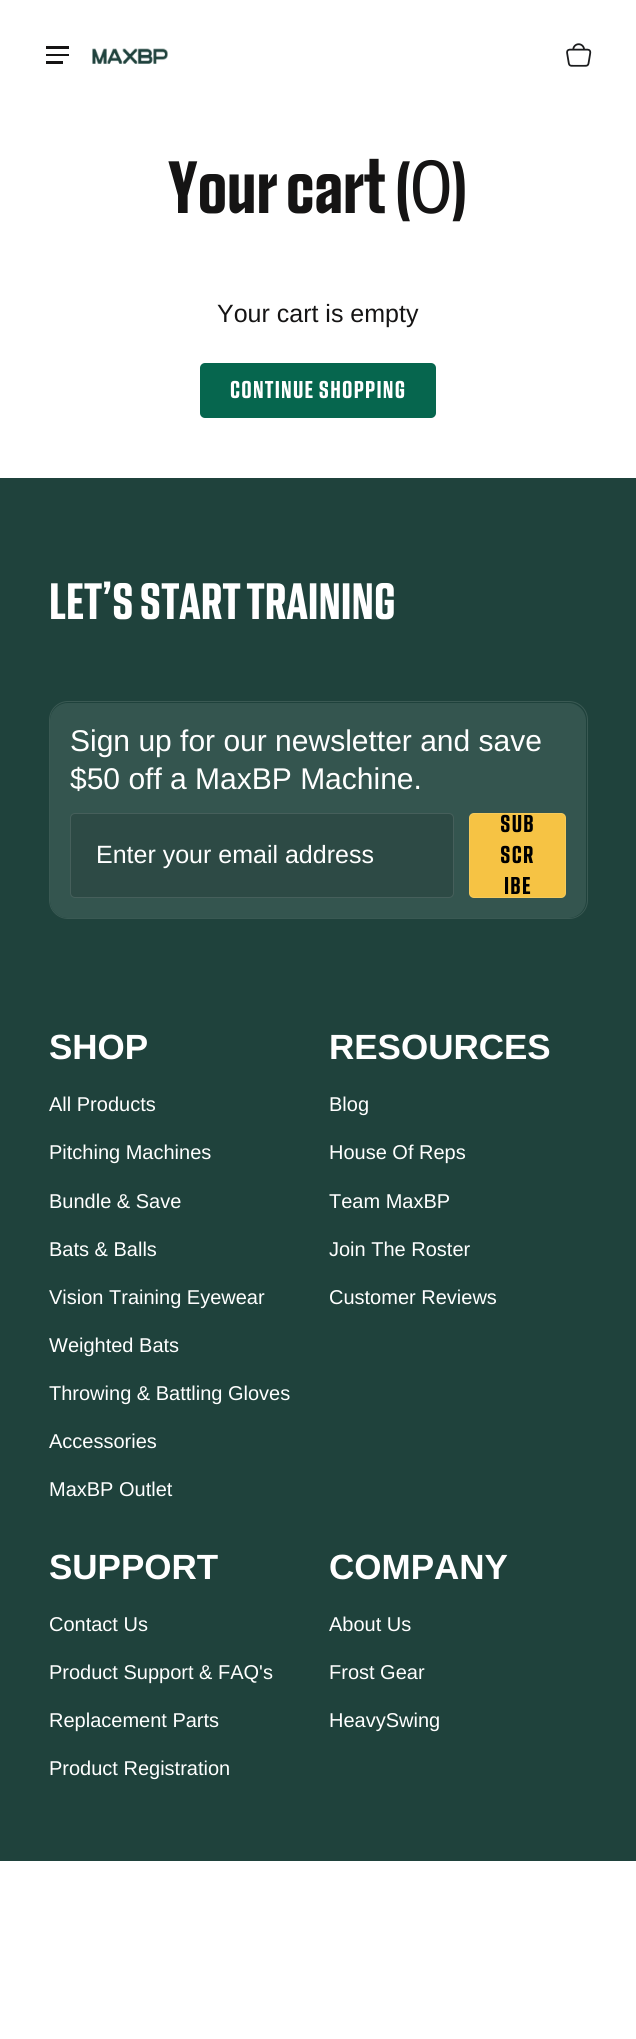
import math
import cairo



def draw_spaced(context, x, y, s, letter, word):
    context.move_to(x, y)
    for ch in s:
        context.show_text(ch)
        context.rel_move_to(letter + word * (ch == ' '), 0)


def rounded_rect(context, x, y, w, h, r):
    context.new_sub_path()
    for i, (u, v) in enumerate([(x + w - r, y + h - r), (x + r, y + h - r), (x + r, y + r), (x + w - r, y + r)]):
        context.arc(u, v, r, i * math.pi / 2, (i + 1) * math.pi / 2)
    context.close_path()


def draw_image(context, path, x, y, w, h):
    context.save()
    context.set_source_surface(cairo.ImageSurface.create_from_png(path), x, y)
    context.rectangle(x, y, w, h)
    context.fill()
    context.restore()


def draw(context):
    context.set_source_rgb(1, 1, 1)
    context.paint()
    context.set_source_rgb(21 / 255, 20 / 255, 20 / 255)
    context.rectangle(46, 46, 23, 3)
    context.fill()
    context.rectangle(46, 54, 23, 2)
    context.fill()
    context.rectangle(46, 61, 17, 3)
    context.fill()
    draw_image(context, "images/1.png", 92, 48, 76, 16)
    draw_image(context, "images/2.png", 566, 43, 26, 24)
    context.set_source_rgb(6 / 255, 102 / 255, 78 / 255)
    rounded_rect(context, 200, 363, 236, 55, 5)
    context.fill()
    context.set_source_rgb(31 / 255, 66 / 255, 60 / 255)
    context.rectangle(0, 478, 636, 1383)
    context.fill()
    rounded_rect(context, 49.5, 701.5, 538, 217, 18.5)
    context.set_source_rgb(58 / 255, 89 / 255, 83 / 255)
    context.set_line_width(1)
    context.stroke()
    context.set_source_rgb(52 / 255, 85 / 255, 79 / 255)
    rounded_rect(context, 50, 703, 536, 215, 18)
    context.fill()
    context.set_source_rgb(45 / 255, 74 / 255, 69 / 255)
    rounded_rect(context, 70, 813, 384, 85, 5)
    context.fill()
    rounded_rect(context, 70.5, 813.5, 383, 84, 4.5)
    context.set_source_rgba(1, 1, 1, 0.12)
    context.stroke()
    context.set_source_rgb(246 / 255, 195 / 255, 68 / 255)
    rounded_rect(context, 469, 813, 97, 85, 5)
    context.fill()
    rounded_rect(context, 469.5, 813.5, 96, 84, 4.5)
    context.set_source_rgba(1, 1, 1, 0.12)
    context.stroke()
    context.select_font_face("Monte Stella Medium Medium")
    context.set_font_size(76)
    context.set_source_rgb(21 / 255, 20 / 255, 20 / 255)
    context.move_to(168, 213)
    context.show_text("Your cart (")
    context.select_font_face("Liberation Sans")
    context.move_to(410, 213)
    context.show_text("0")
    context.select_font_face("Monte Stella Medium Medium")
    context.move_to(452, 213)
    context.show_text(")")
    context.select_font_face("Liberation Sans")
    context.set_font_size(25)
    context.move_to(217, 322)
    context.show_text("Your cart is empty")
    context.select_font_face("Monte Stella Medium Medium")
    context.set_source_rgb(1, 1, 1)
    draw_spaced(context, 230, 398, "CONTINUE SHOPPING", 1.25, 0)
    context.set_font_size(52.5)
    context.move_to(49, 619)
    context.show_text("LET’S START TRAINING")
    context.select_font_face("Liberation Sans")
    context.set_font_size(30)
    context.move_to(70, 751)
    context.show_text("Sign up for our newsletter and save")
    context.move_to(70, 789)
    context.show_text("$50 off a MaxBP Machine.")
    context.set_font_size(25)
    context.move_to(96, 863)
    context.show_text("Enter your email address")
    context.select_font_face("Monte Stella Medium Medium")
    context.set_source_rgb(0, 0, 0)
    draw_spaced(context, 500, 832, "SUB", 1.25, 0)
    draw_spaced(context, 500, 863, "SCR", 1.25, 0)
    draw_spaced(context, 504, 894, "IBE", 1.25, 0)
    context.select_font_face("Liberation Sans", cairo.FontSlant.NORMAL, cairo.FontWeight.BOLD)
    context.set_font_size(35)
    context.set_source_rgb(1, 1, 1)
    context.move_to(49, 1059)
    context.show_text("SHOP")
    context.select_font_face("Liberation Sans")
    context.set_font_size(20)
    context.move_to(49, 1111)
    context.show_text("All Products")
    context.move_to(49, 1159)
    context.show_text("Pitching Machines")
    context.move_to(49, 1208)
    context.show_text("Bundle & Save")
    context.move_to(49, 1256)
    context.show_text("Bats & Balls")
    context.move_to(49, 1304)
    context.show_text("Vision Training Eyewear")
    context.move_to(49, 1352)
    context.show_text("Weighted Bats")
    context.move_to(49, 1400)
    context.show_text("Throwing & Battling Gloves")
    context.move_to(49, 1448)
    context.show_text("Accessories")
    context.move_to(49, 1496)
    context.show_text("MaxBP Outlet")
    context.select_font_face("Liberation Sans", cairo.FontSlant.NORMAL, cairo.FontWeight.BOLD)
    context.set_font_size(35)
    context.move_to(329, 1059)
    context.show_text("RESOURCES")
    context.select_font_face("Liberation Sans")
    context.set_font_size(20)
    context.move_to(329, 1111)
    context.show_text("Blog")
    context.move_to(329, 1159)
    context.show_text("House Of Reps")
    context.move_to(329, 1208)
    context.show_text("Team MaxBP")
    context.move_to(329, 1256)
    context.show_text("Join The Roster")
    context.move_to(329, 1304)
    context.show_text("Customer Reviews")
    context.select_font_face("Liberation Sans", cairo.FontSlant.NORMAL, cairo.FontWeight.BOLD)
    context.set_font_size(35)
    context.move_to(49, 1579)
    context.show_text("SUPPORT")
    context.select_font_face("Liberation Sans")
    context.set_font_size(20)
    context.move_to(49, 1631)
    context.show_text("Contact Us")
    context.move_to(49, 1679)
    context.show_text("Product Support & FAQ's")
    context.move_to(49, 1727)
    context.show_text("Replacement Parts")
    context.move_to(49, 1775)
    context.show_text("Product Registration")
    context.select_font_face("Liberation Sans", cairo.FontSlant.NORMAL, cairo.FontWeight.BOLD)
    context.set_font_size(35)
    context.move_to(329, 1579)
    context.show_text("COMPANY")
    context.select_font_face("Liberation Sans")
    context.set_font_size(20)
    context.move_to(329, 1631)
    context.show_text("About Us")
    context.move_to(329, 1679)
    context.show_text("Frost Gear")
    context.move_to(329, 1727)
    context.show_text("HeavySwing")


surface = cairo.ImageSurface(cairo.Format.RGB24, 636, 2039)
context = cairo.Context(surface)
options = cairo.FontOptions()
options.set_hint_metrics(cairo.HintMetrics.OFF)
options.set_hint_style(cairo.HintStyle.NONE)
context.set_font_options(options)
context.set_miter_limit(4)
draw(context)
surface.write_to_png("out.png")
